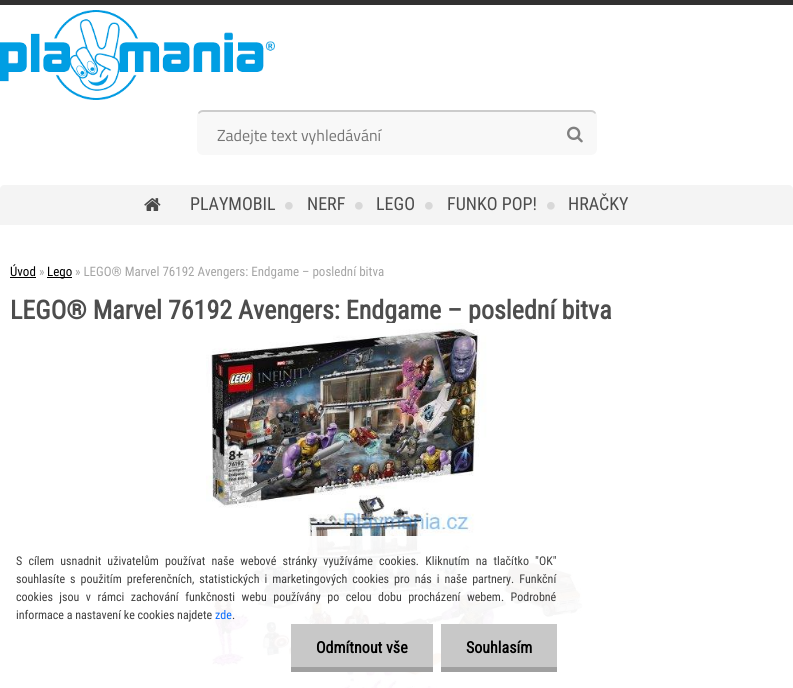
import math
import cairo



def draw_spaced(context, x, y, s, letter, word):
    context.move_to(x, y)
    for ch in s:
        context.show_text(ch)
        context.rel_move_to(letter + word * (ch == ' '), 0)


def rounded_rect(context, x, y, w, h, r):
    context.new_sub_path()
    for i, (u, v) in enumerate([(x + w - r, y + h - r), (x + r, y + h - r), (x + r, y + r), (x + w - r, y + r)]):
        context.arc(u, v, r, i * math.pi / 2, (i + 1) * math.pi / 2)
    context.close_path()


def draw_image(context, path, x, y, w, h):
    context.save()
    context.set_source_surface(cairo.ImageSurface.create_from_png(path), x, y)
    context.rectangle(x, y, w, h)
    context.fill()
    context.restore()


def draw(context):
    context.set_source_rgb(1, 1, 1)
    context.paint()
    context.set_source_rgb(49 / 255, 48 / 255, 48 / 255)
    context.rectangle(0, 0, 793, 5)
    context.fill()
    draw_image(context, "images/1.png", 0, 10, 275, 90)
    context.set_source_rgb(248 / 255, 248 / 255, 248 / 255)
    rounded_rect(context, 197, 110, 400, 45, 6)
    context.fill()
    context.set_source_rgb(204 / 255, 204 / 255, 204 / 255)
    context.new_path()
    context.move_to(203, 110)
    context.curve_to(201, 110, 199, 111, 198, 113)
    context.line_to(199, 114)
    context.curve_to(200, 113, 201, 112, 203, 112)
    context.line_to(591, 112)
    context.curve_to(593, 112, 594, 113, 595, 114)
    context.line_to(596, 113)
    context.curve_to(595, 111, 593, 110, 591, 110)
    context.close_path()
    context.fill()
    draw_image(context, "images/2.png", 567, 126, 16, 17)
    context.set_source_rgb(244 / 255, 244 / 255, 244 / 255)
    context.new_path()
    context.move_to(4, 185)
    context.line_to(789, 185)
    context.curve_to(791, 185, 793, 187, 793, 189)
    context.line_to(793, 225)
    context.line_to(0, 225)
    context.line_to(0, 189)
    context.curve_to(0, 187, 2, 185, 4, 185)
    context.close_path()
    context.fill()
    draw_image(context, "images/3.png", 144, 198, 17, 13)
    draw_image(context, "images/4.png", 285, 202, 8, 8)
    draw_image(context, "images/4.png", 355, 202, 8, 8)
    draw_image(context, "images/4.png", 425, 202, 8, 8)
    draw_image(context, "images/4.png", 547, 202, 8, 8)
    context.set_source_rgb(0, 0, 0)
    context.rectangle(10, 277, 26, 1)
    context.fill()
    context.rectangle(47, 277, 25, 1)
    context.fill()
    context.select_font_face("Titillium Web")
    context.set_font_size(16)
    context.set_source_rgb(117 / 255, 117 / 255, 117 / 255)
    context.move_to(217, 141)
    context.show_text("Zadejte text vyhledávání")
    context.select_font_face("Roboto Condensed")
    context.set_font_size(18)
    context.set_source_rgb(77 / 255, 77 / 255, 77 / 255)
    context.move_to(190, 210)
    context.show_text("PLAYMOBIL")
    context.move_to(307, 210)
    context.show_text("NERF")
    context.move_to(376, 210)
    context.show_text("LEGO")
    context.move_to(447, 210)
    context.show_text("FUNKO POP!")
    context.move_to(568, 210)
    context.show_text("HRAČKY")
    context.set_font_size(13)
    context.set_source_rgb(0, 0, 0)
    context.move_to(10, 276)
    context.show_text("Úvod")
    context.set_source_rgb(165 / 255, 165 / 255, 165 / 255)
    context.move_to(39, 276)
    context.show_text("»")
    context.set_source_rgb(0, 0, 0)
    context.move_to(47, 276)
    context.show_text("Lego")
    context.set_source_rgb(165 / 255, 165 / 255, 165 / 255)
    context.move_to(75, 276)
    context.show_text("» LEGO® Marvel 76192 Avengers: Endgame – poslední bitva")
    context.select_font_face("Roboto Condensed", cairo.FontSlant.NORMAL, cairo.FontWeight.BOLD)
    context.set_font_size(26)
    context.set_source_rgb(77 / 255, 77 / 255, 77 / 255)
    context.move_to(10, 319)
    context.show_text("LEGO® Marvel 76192 Avengers: Endgame – poslední bitva")
    draw_image(context, "images/5.png", 206, 323, 382, 365)
    context.set_source_rgba(1, 1, 1, 0.95)
    context.rectangle(206, 536, 382, 152)
    context.fill()
    context.select_font_face("Roboto Condensed")
    context.set_font_size(12)
    context.set_source_rgb(63 / 255, 63 / 255, 63 / 255)
    draw_spaced(context, 16, 565, "S cílem usnadnit uživatelům používat naše webové stránky využíváme cookies. Kliknutím na tlačítko \"OK\"", 0, 3.4)
    draw_spaced(context, 16, 583, "souhlasíte s použitím preferenčních, statistických i marketingových cookies pro nás i naše partnery. Funkční", 0, 2.25)
    draw_spaced(context, 16, 601, "cookies jsou v rámci zachování funkčnosti webu používány po celou dobu procházení webem. Podrobné", 0, 3.75)
    context.move_to(16, 619)
    context.show_text("informace a nastavení ke cookies najdete")
    context.set_source_rgb(13 / 255, 110 / 255, 253 / 255)
    context.move_to(215, 619)
    context.show_text("zde")
    context.set_source_rgb(63 / 255, 63 / 255, 63 / 255)
    context.move_to(232, 619)
    context.show_text(".")
    context.set_source_rgb(200 / 255, 200 / 255, 200 / 255)
    context.rectangle(291, 624, 142, 43)
    context.fill()
    context.set_source_rgb(160 / 255, 160 / 255, 160 / 255)
    context.rectangle(291, 667, 142, 5)
    context.fill()
    context.select_font_face("Roboto Condensed", cairo.FontSlant.NORMAL, cairo.FontWeight.BOLD)
    context.set_font_size(16)
    context.set_source_rgb(0, 0, 0)
    context.move_to(316, 653)
    context.show_text("Odmítnout vše")
    context.set_source_rgb(200 / 255, 200 / 255, 200 / 255)
    context.rectangle(441, 624, 116, 43)
    context.fill()
    context.set_source_rgb(160 / 255, 160 / 255, 160 / 255)
    context.rectangle(441, 667, 116, 5)
    context.fill()
    context.set_source_rgb(0, 0, 0)
    context.move_to(466, 653)
    context.show_text("Souhlasím")


surface = cairo.ImageSurface(cairo.Format.RGB24, 793, 688)
context = cairo.Context(surface)
options = cairo.FontOptions()
options.set_hint_metrics(cairo.HintMetrics.OFF)
options.set_hint_style(cairo.HintStyle.NONE)
context.set_font_options(options)
context.set_miter_limit(4)
draw(context)
surface.write_to_png("out.png")
